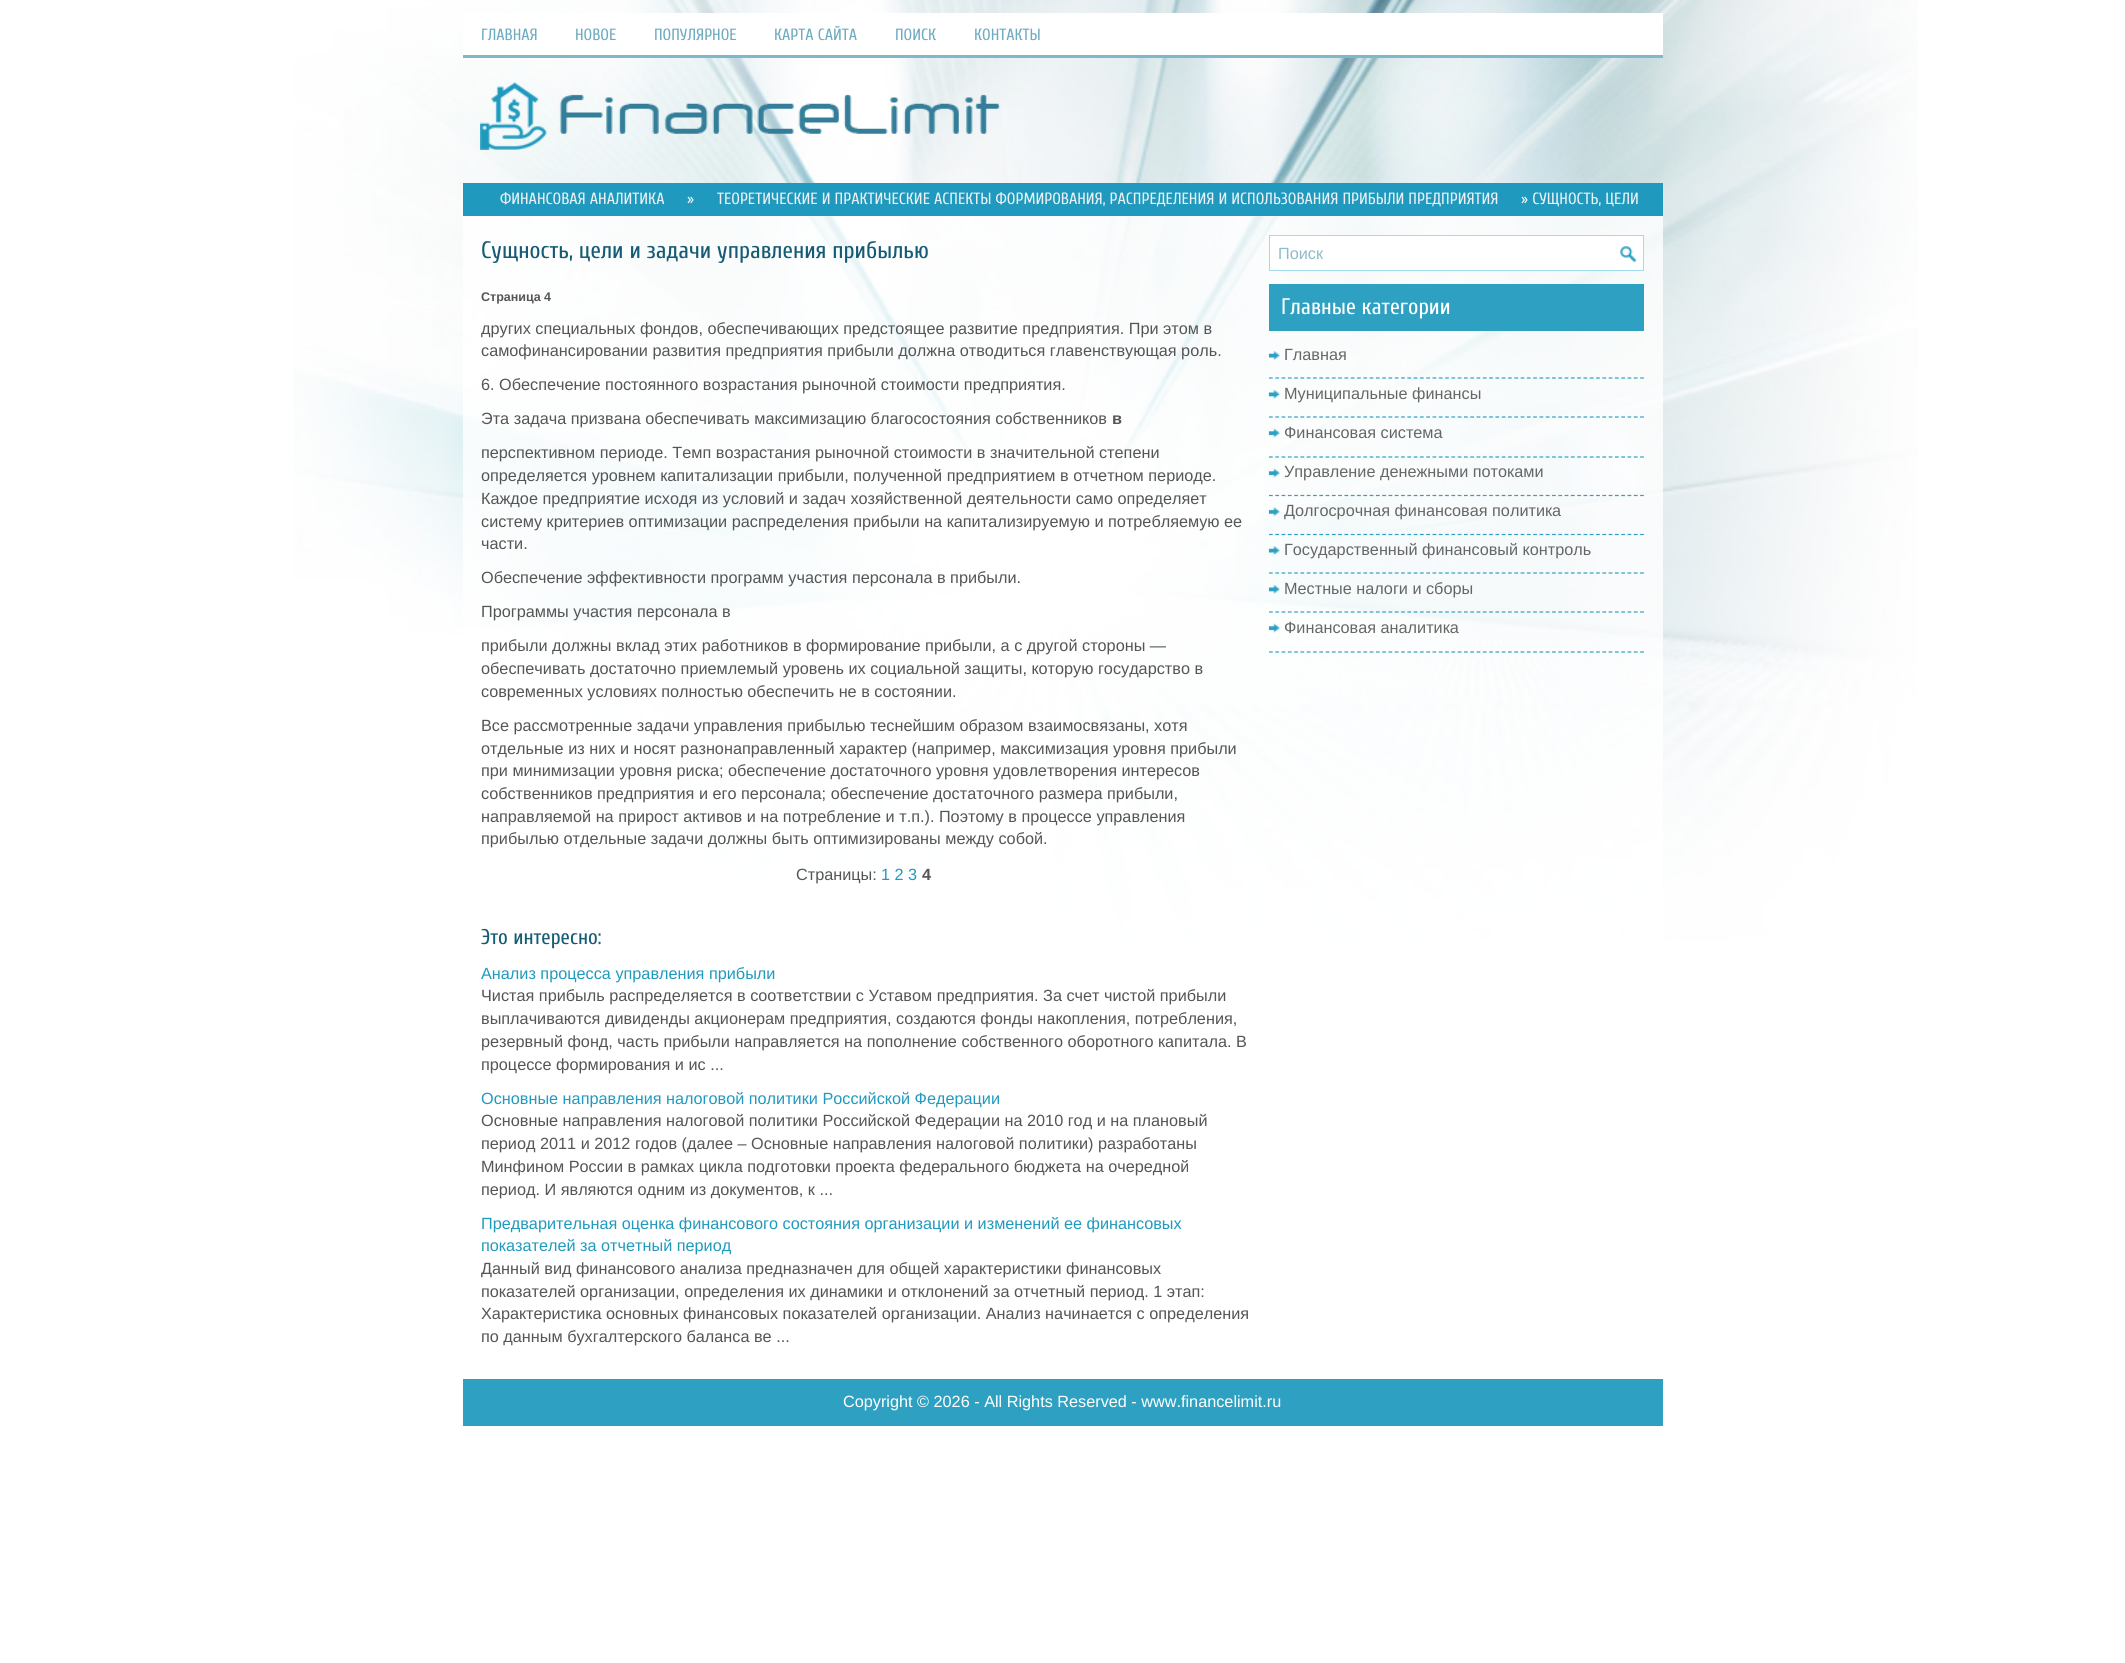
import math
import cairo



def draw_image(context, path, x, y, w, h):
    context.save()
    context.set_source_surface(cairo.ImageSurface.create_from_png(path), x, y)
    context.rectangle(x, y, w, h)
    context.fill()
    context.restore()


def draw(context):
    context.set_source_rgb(1, 1, 1)
    context.paint()
    draw_image(context, "images/1.png", 293, 0, 1625, 941)
    context.set_source_rgb(1, 1, 1)
    context.rectangle(463, 13, 1200, 42)
    context.fill()
    context.set_source_rgb(128 / 255, 184 / 255, 201 / 255)
    context.rectangle(463, 55, 1200, 3)
    context.fill()
    draw_image(context, "images/2.png", 480, 82, 520, 68)
    context.set_source_rgb(31 / 255, 154 / 255, 190 / 255)
    context.rectangle(463, 183, 1200, 33)
    context.fill()
    context.set_source_rgba(1, 1, 1, 0.8)
    context.rectangle(463, 216, 1200, 725)
    context.fill()
    context.set_source_rgb(1, 1, 1)
    context.rectangle(1270, 236, 373, 34)
    context.fill()
    draw_image(context, "images/3.png", 1619, 246, 18, 17)
    context.rectangle(1269.5, 235.5, 374, 35)
    context.set_source_rgb(161 / 255, 219 / 255, 236 / 255)
    context.set_line_width(1)
    context.stroke()
    context.set_source_rgb(46 / 255, 161 / 255, 194 / 255)
    context.rectangle(1269, 284, 375, 47)
    context.fill()
    draw_image(context, "images/4.png", 1268, 351, 12, 9)
    context.new_path()
    context.move_to(1269, 378)
    context.line_to(1644, 378)
    context.set_line_width(1.2)
    context.set_dash([3.75, 2.54])
    context.stroke()
    draw_image(context, "images/5.png", 1268, 390, 12, 9)
    context.new_path()
    context.move_to(1269, 417)
    context.line_to(1644, 417)
    context.stroke()
    draw_image(context, "images/6.png", 1268, 428, 12, 10)
    context.new_path()
    context.move_to(1269, 457)
    context.line_to(1644, 457)
    context.stroke()
    draw_image(context, "images/7.png", 1268, 468, 12, 10)
    context.new_path()
    context.move_to(1269, 495.5)
    context.line_to(1644, 495.5)
    context.stroke()
    draw_image(context, "images/8.png", 1268, 507, 12, 10)
    context.new_path()
    context.move_to(1269, 534.5)
    context.line_to(1644, 534.5)
    context.stroke()
    draw_image(context, "images/9.png", 1268, 546, 12, 9)
    context.new_path()
    context.move_to(1269, 573)
    context.line_to(1644, 573)
    context.stroke()
    draw_image(context, "images/10.png", 1268, 585, 12, 9)
    context.new_path()
    context.move_to(1269, 612)
    context.line_to(1644, 612)
    context.stroke()
    draw_image(context, "images/11.png", 1268, 623, 12, 10)
    context.new_path()
    context.move_to(1269, 652)
    context.line_to(1644, 652)
    context.stroke()
    context.rectangle(463, 1379, 1200, 47)
    context.fill()
    context.select_font_face("Cuprum")
    context.set_font_size(16.25)
    context.set_source_rgb(110 / 255, 170 / 255, 192 / 255)
    context.move_to(481, 40)
    context.show_text("ГЛАВНАЯ")
    context.move_to(575, 40)
    context.show_text("НОВОЕ")
    context.move_to(654, 40)
    context.show_text("ПОПУЛЯРНОЕ")
    context.move_to(774, 40)
    context.show_text("КАРТА САЙТА")
    context.move_to(895, 40)
    context.show_text("ПОИСК")
    context.move_to(974, 40)
    context.show_text("КОНТАКТЫ")
    context.set_source_rgb(237 / 255, 241 / 255, 244 / 255)
    context.move_to(500, 204)
    context.show_text("ФИНАНСОВАЯ АНАЛИТИКА")
    context.move_to(687, 204)
    context.show_text("»")
    context.move_to(717, 204)
    context.show_text("ТЕОРЕТИЧЕСКИЕ И ПРАКТИЧЕСКИЕ АСПЕКТЫ ФОРМИРОВАНИЯ, РАСПРЕДЕЛЕНИЯ И ИСПОЛЬЗОВАНИЯ ПРИБЫЛИ ПРЕДПРИЯТИЯ")
    context.move_to(1521, 204)
    context.show_text("» СУЩНОСТЬ, ЦЕЛИ")
    context.set_font_size(23.75)
    context.set_source_rgb(21 / 255, 91 / 255, 117 / 255)
    context.move_to(481, 258)
    context.show_text("Сущность, цели и задачи управления прибылью")
    context.select_font_face("Liberation Sans", cairo.FontSlant.NORMAL, cairo.FontWeight.BOLD)
    context.set_font_size(12.5)
    context.set_source_rgb(85 / 255, 85 / 255, 85 / 255)
    context.move_to(481, 301)
    context.show_text("Страница 4")
    context.select_font_face("Liberation Sans")
    context.set_font_size(16.25)
    context.move_to(481, 334)
    context.show_text("других специальных фондов, обеспечивающих предстоящее развитие предприятия. При этом в")
    context.move_to(481, 356)
    context.show_text("самофинансировании развития предприятия прибыли должна отводиться главенствующая роль.")
    context.move_to(481, 390)
    context.show_text("6. Обеспечение постоянного возрастания рыночной стоимости предприятия.")
    context.move_to(481, 424)
    context.show_text("Эта задача призвана обеспечивать максимизацию благосостояния собственников")
    context.select_font_face("Liberation Sans", cairo.FontSlant.NORMAL, cairo.FontWeight.BOLD)
    context.move_to(1112, 424)
    context.show_text("в")
    context.select_font_face("Liberation Sans")
    context.move_to(481, 458)
    context.show_text("перспективном периоде. Темп возрастания рыночной стоимости в значительной степени")
    context.move_to(481, 481)
    context.show_text("определяется уровнем капитализации прибыли, полученной предприятием в отчетном периоде.")
    context.move_to(481, 504)
    context.show_text("Каждое предприятие исходя из условий и задач хозяйственной деятельности само определяет")
    context.move_to(481, 527)
    context.show_text("систему критериев оптимизации распределения прибыли на капитализируемую и потребляемую ее")
    context.move_to(481, 549)
    context.show_text("части.")
    context.move_to(481, 583)
    context.show_text("Обеспечение эффективности программ участия персонала в прибыли.")
    context.move_to(481, 617)
    context.show_text("Программы участия персонала в")
    context.move_to(481, 651)
    context.show_text("прибыли должны вклад этих работников в формирование прибыли, а с другой стороны —")
    context.move_to(481, 674)
    context.show_text("обеспечивать достаточно приемлемый уровень их социальной защиты, которую государство в")
    context.move_to(481, 697)
    context.show_text("современных условиях полностью обеспечить не в состоянии.")
    context.move_to(481, 731)
    context.show_text("Все рассмотренные задачи управления прибылью теснейшим образом взаимосвязаны, хотя")
    context.move_to(481, 754)
    context.show_text("отдельные из них и носят разнонаправленный характер (например, максимизация уровня прибыли")
    context.move_to(481, 776)
    context.show_text("при минимизации уровня риска; обеспечение достаточного уровня удовлетворения интересов")
    context.move_to(481, 799)
    context.show_text("собственников предприятия и его персонала; обеспечение достаточного размера прибыли,")
    context.move_to(481, 822)
    context.show_text("направляемой на прирост активов и на потребление и т.п.). Поэтому в процессе управления")
    context.move_to(481, 844)
    context.show_text("прибылью отдельные задачи должны быть оптимизированы между собой.")
    context.move_to(796, 880)
    context.show_text("Страницы:")
    context.set_source_rgb(31 / 255, 154 / 255, 190 / 255)
    context.move_to(881, 880)
    context.show_text("1 2 3")
    context.select_font_face("Liberation Sans", cairo.FontSlant.NORMAL, cairo.FontWeight.BOLD)
    context.set_source_rgb(85 / 255, 85 / 255, 85 / 255)
    context.move_to(922, 880)
    context.show_text("4")
    context.select_font_face("Cuprum")
    context.set_font_size(21.25)
    context.set_source_rgb(21 / 255, 91 / 255, 117 / 255)
    context.move_to(481, 944)
    context.show_text("Это интересно:")
    context.select_font_face("Liberation Sans")
    context.set_font_size(16.25)
    context.set_source_rgb(31 / 255, 154 / 255, 190 / 255)
    context.move_to(481, 979)
    context.show_text("Анализ процесса управления прибыли")
    context.set_source_rgb(85 / 255, 85 / 255, 85 / 255)
    context.move_to(481, 1001)
    context.show_text("Чистая прибыль распределяется в соответствии с Уставом предприятия. За счет чистой прибыли")
    context.move_to(481, 1024)
    context.show_text("выплачиваются дивиденды акционерам предприятия, создаются фонды накопления, потребления,")
    context.move_to(481, 1047)
    context.show_text("резервный фонд, часть прибыли направляется на пополнение собственного оборотного капитала. В")
    context.move_to(481, 1070)
    context.show_text("процессе формирования и ис ...")
    context.set_source_rgb(31 / 255, 154 / 255, 190 / 255)
    context.move_to(481, 1104)
    context.show_text("Основные направления налоговой политики Российской Федерации")
    context.set_source_rgb(85 / 255, 85 / 255, 85 / 255)
    context.move_to(481, 1126)
    context.show_text("Основные направления налоговой политики Российской Федерации на 2010 год и на плановый")
    context.move_to(481, 1149)
    context.show_text("период 2011 и 2012 годов (далее – Основные направления налоговой политики) разработаны")
    context.move_to(481, 1172)
    context.show_text("Минфином России в рамках цикла подготовки проекта федерального бюджета на очередной")
    context.move_to(481, 1195)
    context.show_text("период. И являются одним из документов, к ...")
    context.set_source_rgb(31 / 255, 154 / 255, 190 / 255)
    context.move_to(481, 1229)
    context.show_text("Предварительная оценка финансового состояния организации и изменений ее финансовых")
    context.move_to(481, 1251)
    context.show_text("показателей за отчетный период")
    context.set_source_rgb(85 / 255, 85 / 255, 85 / 255)
    context.move_to(481, 1274)
    context.show_text("Данный вид финансового анализа предназначен для общей характеристики финансовых")
    context.move_to(481, 1297)
    context.show_text("показателей организации, определения их динамики и отклонений за отчетный период. 1 этап:")
    context.move_to(481, 1319)
    context.show_text("Характеристика основных финансовых показателей организации. Анализ начинается с определения")
    context.move_to(481, 1342)
    context.show_text("по данным бухгалтерского баланса ве ...")
    context.set_source_rgb(141 / 255, 189 / 255, 203 / 255)
    context.move_to(1278, 259)
    context.show_text("Поиск")
    context.select_font_face("Cuprum")
    context.set_font_size(22.5)
    context.set_source_rgb(1, 1, 1)
    context.move_to(1281, 314)
    context.show_text("Главные категории")
    context.select_font_face("Liberation Sans")
    context.set_font_size(16.25)
    context.set_source_rgb(102 / 255, 102 / 255, 102 / 255)
    context.move_to(1284, 360)
    context.show_text("Главная")
    context.move_to(1284, 399)
    context.show_text("Муниципальные финансы")
    context.move_to(1284, 438)
    context.show_text("Финансовая система")
    context.move_to(1284, 477)
    context.show_text("Управление денежными потоками")
    context.move_to(1284, 516)
    context.show_text("Долгосрочная финансовая политика")
    context.move_to(1284, 555)
    context.show_text("Государственный финансовый контроль")
    context.move_to(1284, 594)
    context.show_text("Местные налоги и сборы")
    context.move_to(1284, 633)
    context.show_text("Финансовая аналитика")
    context.set_source_rgb(1, 1, 1)
    context.move_to(843, 1407)
    context.show_text("Copyright © 2026 - All Rights Reserved - www.financelimit.ru")


surface = cairo.ImageSurface(cairo.Format.RGB24, 2125, 1663)
context = cairo.Context(surface)
options = cairo.FontOptions()
options.set_hint_metrics(cairo.HintMetrics.OFF)
options.set_hint_style(cairo.HintStyle.NONE)
context.set_font_options(options)
context.set_miter_limit(4)
draw(context)
surface.write_to_png("out.png")
